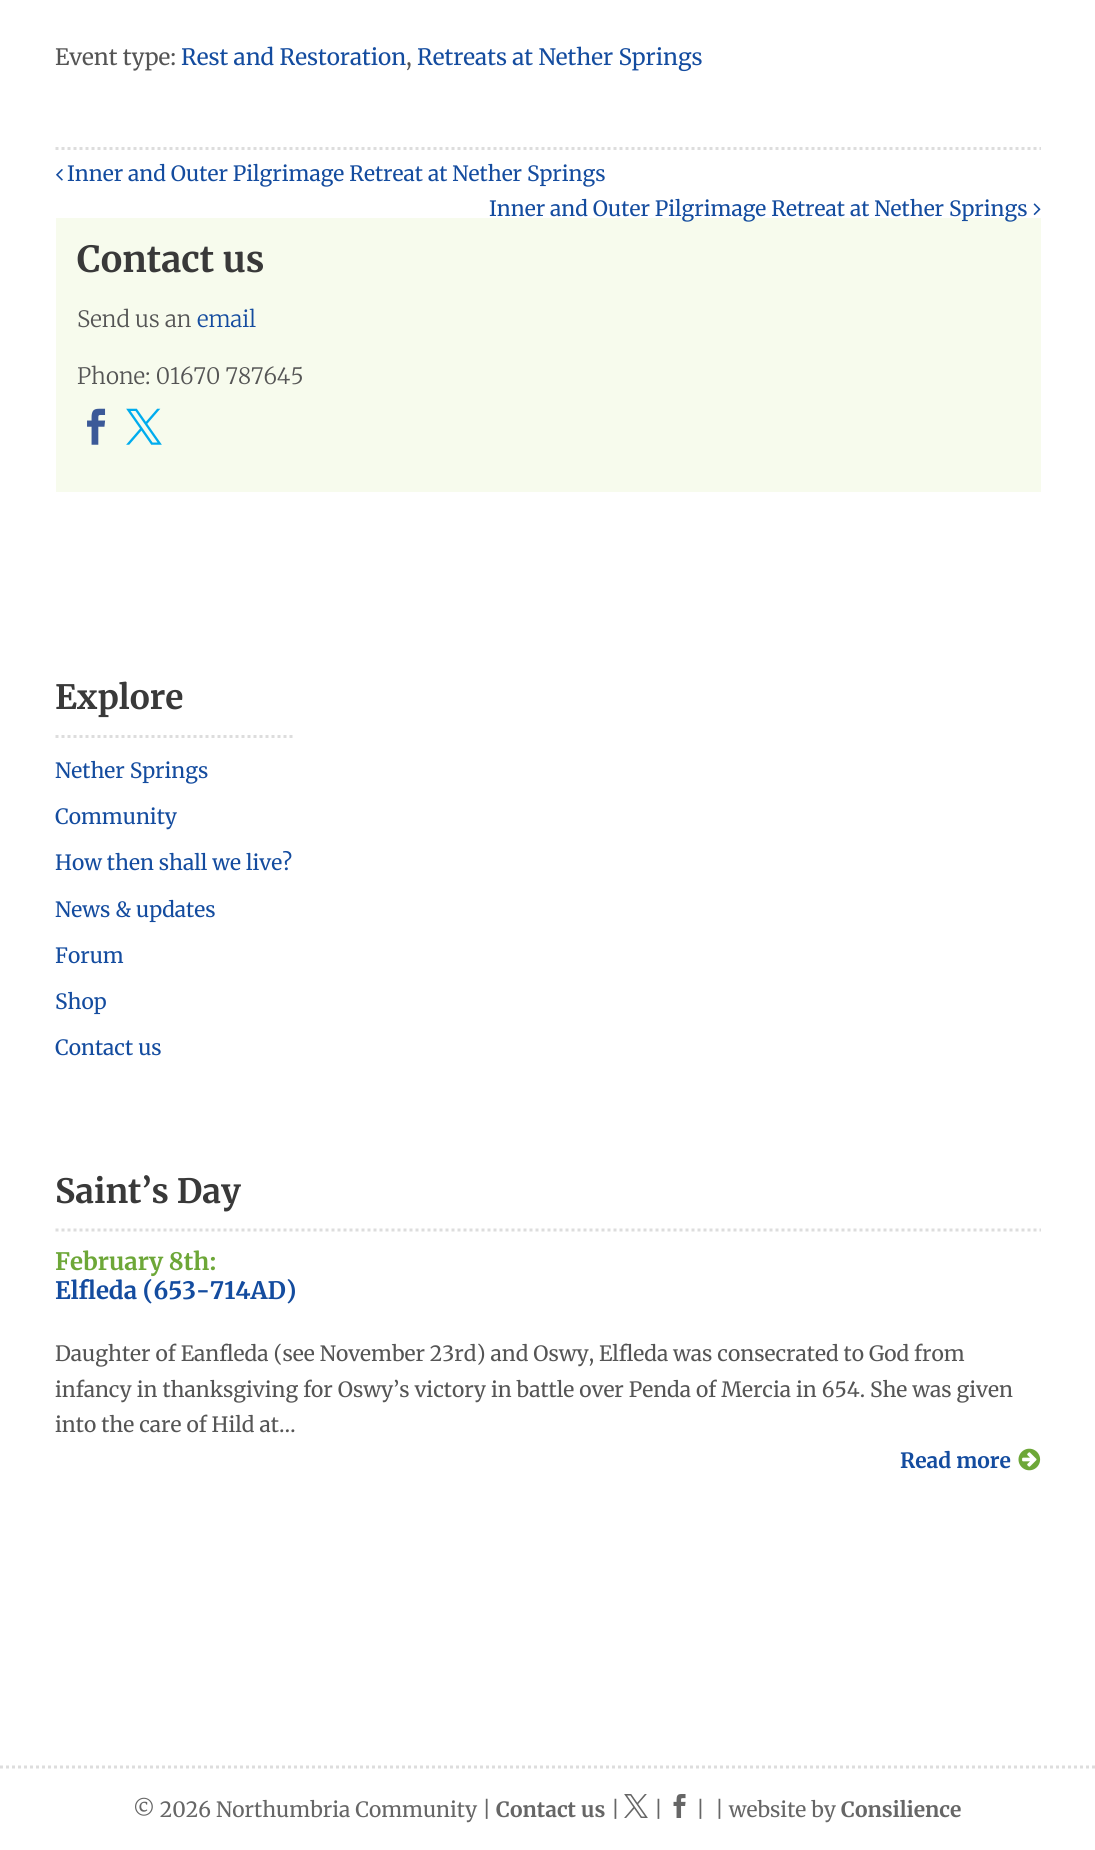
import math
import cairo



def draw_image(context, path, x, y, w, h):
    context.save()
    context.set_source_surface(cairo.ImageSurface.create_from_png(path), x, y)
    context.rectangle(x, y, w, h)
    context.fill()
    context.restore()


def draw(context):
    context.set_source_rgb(1, 1, 1)
    context.paint()
    context.new_path()
    context.move_to(55.5, 148.5)
    context.line_to(1041, 148.5)
    context.set_source_rgb(221 / 255, 221 / 255, 221 / 255)
    context.set_line_width(3)
    context.set_dash([3, 3])
    context.stroke()
    draw_image(context, "images/1.png", 56, 169, 7, 12)
    draw_image(context, "images/2.png", 1033, 203, 8, 13)
    context.set_source_rgb(247 / 255, 251 / 255, 237 / 255)
    context.rectangle(56, 218, 985, 274)
    context.fill()
    draw_image(context, "images/3.png", 87, 408, 19, 37)
    draw_image(context, "images/4.png", 126, 408, 36, 37)
    context.new_path()
    context.move_to(55.5, 736.5)
    context.line_to(292.5, 736.5)
    context.set_source_rgb(221 / 255, 221 / 255, 221 / 255)
    context.stroke()
    context.new_path()
    context.move_to(55.5, 1230)
    context.line_to(1041, 1230)
    context.stroke()
    draw_image(context, "images/5.png", 1018, 1448, 23, 23)
    context.new_path()
    context.move_to(0, 1767)
    context.line_to(1095, 1767)
    context.stroke()
    draw_image(context, "images/6.png", 624, 1794, 24, 24)
    draw_image(context, "images/7.png", 673, 1794, 13, 24)
    context.select_font_face("Merriweather")
    context.set_font_size(22.5)
    context.set_source_rgb(85 / 255, 85 / 255, 85 / 255)
    context.move_to(55, 65)
    context.show_text("Event type:")
    context.set_source_rgb(20 / 255, 76 / 255, 159 / 255)
    context.move_to(181, 65)
    context.show_text("Rest and Restoration")
    context.set_source_rgb(85 / 255, 85 / 255, 85 / 255)
    context.move_to(406, 65)
    context.show_text(",")
    context.set_source_rgb(20 / 255, 76 / 255, 159 / 255)
    context.move_to(417, 65)
    context.show_text("Retreats at Nether Springs")
    context.set_font_size(21)
    context.move_to(67, 181)
    context.show_text("Inner and Outer Pilgrimage Retreat at Nether Springs")
    context.move_to(489, 216)
    context.show_text("Inner and Outer Pilgrimage Retreat at Nether Springs")
    context.select_font_face("Merriweather", cairo.FontSlant.NORMAL, cairo.FontWeight.BOLD)
    context.set_font_size(36)
    context.set_source_rgb(57 / 255, 57 / 255, 57 / 255)
    context.move_to(77, 272)
    context.show_text("Contact us")
    context.select_font_face("Merriweather Light")
    context.set_font_size(22.5)
    context.set_source_rgb(85 / 255, 85 / 255, 85 / 255)
    context.move_to(77, 327)
    context.show_text("Send us an")
    context.set_source_rgb(20 / 255, 76 / 255, 159 / 255)
    context.move_to(197, 327)
    context.show_text("email")
    context.set_source_rgb(85 / 255, 85 / 255, 85 / 255)
    context.move_to(77, 384)
    context.show_text("Phone: 01670 787645")
    context.select_font_face("Merriweather", cairo.FontSlant.NORMAL, cairo.FontWeight.BOLD)
    context.set_font_size(33.5)
    context.set_source_rgb(57 / 255, 57 / 255, 57 / 255)
    context.move_to(55, 709)
    context.show_text("Explore")
    context.select_font_face("Merriweather")
    context.set_font_size(21)
    context.set_source_rgb(20 / 255, 76 / 255, 159 / 255)
    context.move_to(55, 778)
    context.show_text("Nether Springs")
    context.move_to(55, 824)
    context.show_text("Community")
    context.move_to(55, 870)
    context.show_text("How then shall we live?")
    context.move_to(55, 917)
    context.show_text("News & updates")
    context.move_to(55, 963)
    context.show_text("Forum")
    context.move_to(55, 1009)
    context.show_text("Shop")
    context.move_to(55, 1055)
    context.show_text("Contact us")
    context.select_font_face("Merriweather", cairo.FontSlant.NORMAL, cairo.FontWeight.BOLD)
    context.set_font_size(33.5)
    context.set_source_rgb(57 / 255, 57 / 255, 57 / 255)
    context.move_to(55, 1203)
    context.show_text("Saint’s Day")
    context.set_font_size(24)
    context.set_source_rgb(109 / 255, 167 / 255, 56 / 255)
    context.move_to(55, 1270)
    context.show_text("February 8th:")
    context.set_source_rgb(20 / 255, 76 / 255, 159 / 255)
    context.move_to(55, 1299)
    context.show_text("Elfleda (653-714AD)")
    context.select_font_face("Merriweather")
    context.set_font_size(21)
    context.set_source_rgb(85 / 255, 85 / 255, 85 / 255)
    context.move_to(55, 1361)
    context.show_text("Daughter of Eanfleda (see November 23rd) and Oswy, Elfleda was consecrated to God from")
    context.move_to(55, 1397)
    context.show_text("infancy in thanksgiving for Oswy’s victory in battle over Penda of Mercia in 654. She was given")
    context.move_to(55, 1432)
    context.show_text("into the care of Hild at…")
    context.select_font_face("Merriweather", cairo.FontSlant.NORMAL, cairo.FontWeight.BOLD)
    context.set_source_rgb(20 / 255, 76 / 255, 159 / 255)
    context.move_to(900, 1468)
    context.show_text("Read more")
    context.select_font_face("Merriweather")
    context.set_source_rgb(102 / 255, 102 / 255, 102 / 255)
    context.move_to(133, 1817)
    context.show_text("© 2026 Northumbria Community |")
    context.select_font_face("Merriweather", cairo.FontSlant.NORMAL, cairo.FontWeight.BOLD)
    context.move_to(496, 1817)
    context.show_text("Contact us")
    context.select_font_face("Merriweather")
    context.move_to(611, 1817)
    context.show_text("|")
    context.move_to(654, 1817)
    context.show_text("|")
    context.move_to(696, 1817)
    context.show_text("|")
    context.move_to(715, 1817)
    context.show_text("| website by")
    context.select_font_face("Merriweather", cairo.FontSlant.NORMAL, cairo.FontWeight.BOLD)
    context.move_to(841, 1817)
    context.show_text("Consilience")


surface = cairo.ImageSurface(cairo.Format.RGB24, 1095, 1850)
context = cairo.Context(surface)
options = cairo.FontOptions()
options.set_hint_metrics(cairo.HintMetrics.OFF)
options.set_hint_style(cairo.HintStyle.NONE)
context.set_font_options(options)
context.set_miter_limit(4)
draw(context)
surface.write_to_png("out.png")
